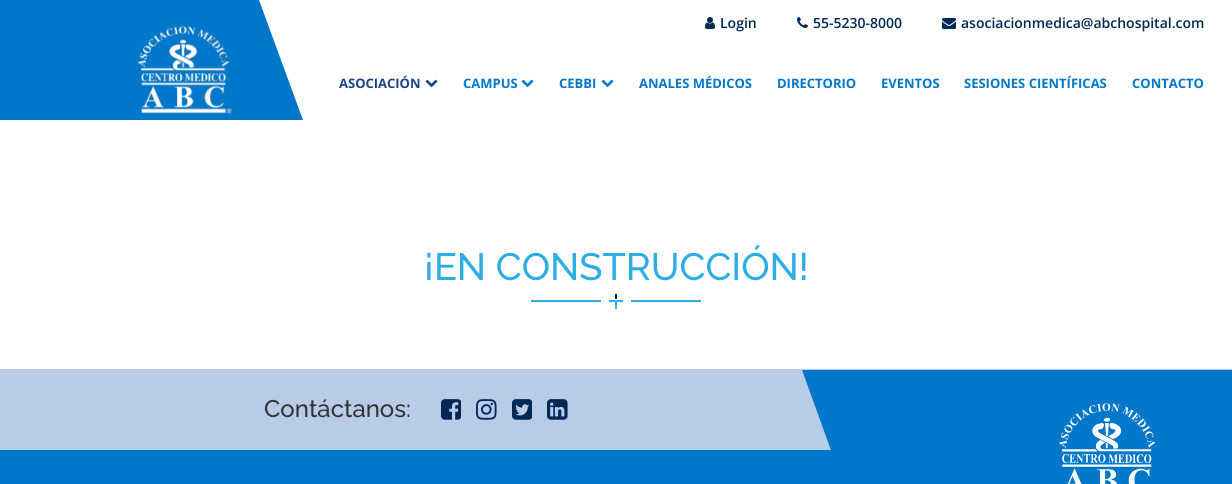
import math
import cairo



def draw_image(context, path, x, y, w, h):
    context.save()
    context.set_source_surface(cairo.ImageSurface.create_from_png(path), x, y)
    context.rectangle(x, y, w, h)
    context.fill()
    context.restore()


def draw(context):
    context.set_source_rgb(1, 1, 1)
    context.paint()
    draw_image(context, "images/1.png", 705, 17, 10, 12)
    draw_image(context, "images/2.png", 797, 17, 11, 11)
    draw_image(context, "images/3.png", 942, 18, 14, 11)
    context.set_source_rgb(0, 119 / 255, 200 / 255)
    context.new_path()
    context.move_to(-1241, 0)
    context.line_to(259, 0)
    context.line_to(303, 120)
    context.line_to(-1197, 120)
    context.close_path()
    context.fill()
    draw_image(context, "images/4.png", 137, 26, 96, 88)
    draw_image(context, "images/5.png", 425, 79, 13, 9)
    draw_image(context, "images/6.png", 521, 79, 13, 9)
    draw_image(context, "images/6.png", 601, 79, 13, 9)
    context.set_source_rgb(44 / 255, 174 / 255, 226 / 255)
    context.rectangle(531, 300, 70, 2)
    context.fill()
    context.rectangle(609, 300, 14, 2)
    context.fill()
    context.set_source_rgb(0, 40 / 255, 86 / 255)
    context.rectangle(615, 294, 2, 5)
    context.fill()
    context.set_source_rgb(44 / 255, 174 / 255, 226 / 255)
    context.rectangle(615, 302, 2, 7)
    context.fill()
    context.rectangle(631, 300, 70, 2)
    context.fill()
    context.set_source_rgb(0, 119 / 255, 200 / 255)
    context.rectangle(0, 450, 844, 34)
    context.fill()
    context.set_source_rgb(184 / 255, 204 / 255, 234 / 255)
    context.rectangle(0, 369, 1232, 81)
    context.fill()
    context.set_source_rgb(0, 119 / 255, 200 / 255)
    context.new_path()
    context.move_to(802, 370)
    context.line_to(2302, 370)
    context.line_to(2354, 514)
    context.line_to(854, 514)
    context.close_path()
    context.fill()
    draw_image(context, "images/7.png", 1059, 403, 97, 81)
    draw_image(context, "images/8.png", 441, 399, 20, 21)
    draw_image(context, "images/9.png", 476, 399, 21, 21)
    draw_image(context, "images/10.png", 512, 399, 20, 21)
    draw_image(context, "images/11.png", 547, 399, 21, 21)
    context.select_font_face("Open Sans SemiBold")
    context.set_font_size(14)
    context.set_source_rgb(0, 40 / 255, 86 / 255)
    context.move_to(720, 28)
    context.show_text("Login")
    context.move_to(813, 28)
    context.show_text("55-5230-8000")
    context.move_to(961, 28)
    context.show_text("asociacionmedica@abchospital.com")
    context.select_font_face("Open Sans", cairo.FontSlant.NORMAL, cairo.FontWeight.BOLD)
    context.set_font_size(13)
    context.set_source_rgb(29 / 255, 66 / 255, 138 / 255)
    context.move_to(339, 88)
    context.show_text("ASOCIACIÓN")
    context.set_source_rgb(0, 119 / 255, 200 / 255)
    context.move_to(463, 88)
    context.show_text("CAMPUS")
    context.move_to(559, 88)
    context.show_text("CEBBI")
    context.move_to(639, 88)
    context.show_text("ANALES MÉDICOS")
    context.move_to(777, 88)
    context.show_text("DIRECTORIO")
    context.move_to(881, 88)
    context.show_text("EVENTOS")
    context.move_to(964, 88)
    context.show_text("SESIONES CIENTÍFICAS")
    context.move_to(1132, 88)
    context.show_text("CONTACTO")
    context.select_font_face("Raleway Medium")
    context.set_font_size(38)
    context.set_source_rgb(44 / 255, 174 / 255, 226 / 255)
    context.move_to(424, 280)
    context.show_text("¡EN CONSTRUCCIÓN!")
    context.set_font_size(24)
    context.set_source_rgb(51 / 255, 51 / 255, 51 / 255)
    context.move_to(264, 417)
    context.show_text("Contáctanos:")


surface = cairo.ImageSurface(cairo.Format.RGB24, 1232, 484)
context = cairo.Context(surface)
options = cairo.FontOptions()
options.set_hint_metrics(cairo.HintMetrics.OFF)
options.set_hint_style(cairo.HintStyle.NONE)
context.set_font_options(options)
context.set_miter_limit(4)
draw(context)
surface.write_to_png("out.png")
